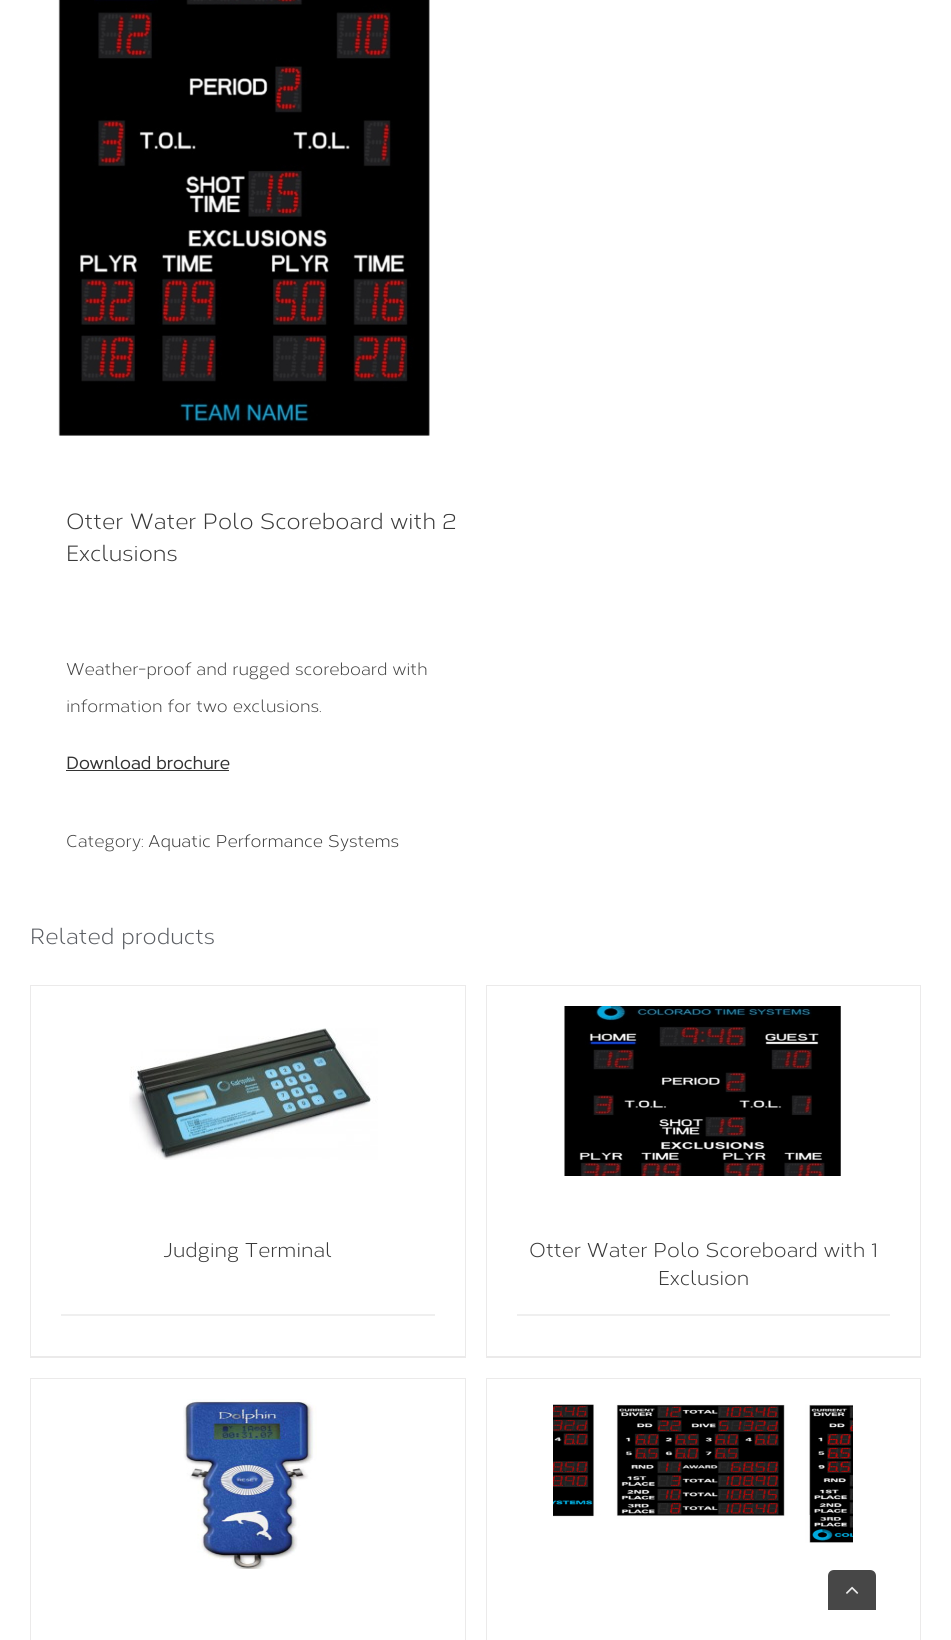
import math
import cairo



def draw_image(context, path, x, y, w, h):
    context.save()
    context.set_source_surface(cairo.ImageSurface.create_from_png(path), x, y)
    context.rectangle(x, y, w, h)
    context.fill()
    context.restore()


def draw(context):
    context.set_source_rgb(1, 1, 1)
    context.paint()
    draw_image(context, "images/1.png", 58, 0, 372, 436)
    context.set_source_rgb(51 / 255, 51 / 255, 51 / 255)
    context.rectangle(66, 770, 163, 1)
    context.fill()
    context.set_source_rgb(235 / 255, 234 / 255, 234 / 255)
    context.rectangle(30, 985, 436, 1)
    context.fill()
    context.rectangle(465, 985, 1, 373)
    context.fill()
    context.rectangle(30, 1356, 436, 2)
    context.fill()
    context.rectangle(30, 985, 1, 373)
    context.fill()
    draw_image(context, "images/2.png", 129, 1028, 249, 132)
    context.set_source_rgb(239 / 255, 239 / 255, 239 / 255)
    context.rectangle(61, 1314, 374, 2)
    context.fill()
    context.set_source_rgb(235 / 255, 234 / 255, 234 / 255)
    context.rectangle(486, 985, 435, 1)
    context.fill()
    context.rectangle(920, 985, 1, 373)
    context.fill()
    context.rectangle(486, 1356, 435, 2)
    context.fill()
    context.rectangle(486, 985, 1, 373)
    context.fill()
    draw_image(context, "images/3.png", 564, 1006, 277, 170)
    context.set_source_rgb(239 / 255, 239 / 255, 239 / 255)
    context.rectangle(517, 1314, 373, 2)
    context.fill()
    context.set_source_rgb(235 / 255, 234 / 255, 234 / 255)
    context.rectangle(30, 1378, 436, 1)
    context.fill()
    context.rectangle(465, 1378, 1, 262)
    context.fill()
    context.rectangle(30, 1378, 1, 262)
    context.fill()
    draw_image(context, "images/4.png", 183, 1399, 134, 170)
    context.rectangle(486, 1378, 435, 1)
    context.fill()
    context.rectangle(920, 1378, 1, 262)
    context.fill()
    context.rectangle(486, 1378, 1, 262)
    context.fill()
    draw_image(context, "images/5.png", 553, 1404, 300, 139)
    context.set_source_rgb(71 / 255, 71 / 255, 71 / 255)
    context.new_path()
    context.move_to(834, 1570)
    context.line_to(870, 1570)
    context.curve_to(873.5, 1570, 876, 1572.5, 876, 1576)
    context.line_to(876, 1610)
    context.line_to(828, 1610)
    context.line_to(828, 1576)
    context.curve_to(828, 1572.5, 830.5, 1570, 834, 1570)
    context.close_path()
    context.fill()
    draw_image(context, "images/6.png", 846, 1586, 13, 8)
    context.select_font_face("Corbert")
    context.set_font_size(22)
    context.set_source_rgb(58 / 255, 58 / 255, 58 / 255)
    context.move_to(66, 529)
    context.show_text("Otter Water Polo Scoreboard with 2")
    context.move_to(66, 561)
    context.show_text("Exclusions")
    context.set_font_size(17)
    context.set_source_rgb(68 / 255, 68 / 255, 68 / 255)
    context.move_to(66, 675)
    context.show_text("Weather-proof and rugged scoreboard with")
    context.move_to(66, 712)
    context.show_text("information for two exclusions.")
    context.select_font_face("Corbert", cairo.FontSlant.NORMAL, cairo.FontWeight.BOLD)
    context.set_source_rgb(51 / 255, 51 / 255, 51 / 255)
    context.move_to(66, 769)
    context.show_text("Download brochure")
    context.select_font_face("Corbert")
    context.set_source_rgb(68 / 255, 68 / 255, 68 / 255)
    context.move_to(66, 847)
    context.show_text("Category:")
    context.set_source_rgb(58 / 255, 58 / 255, 58 / 255)
    context.move_to(148, 847)
    context.show_text("Aquatic Performance Systems")
    context.set_font_size(22)
    context.set_source_rgb(90 / 255, 93 / 255, 98 / 255)
    context.move_to(30, 944)
    context.show_text("Related products")
    context.set_font_size(20)
    context.set_source_rgb(58 / 255, 58 / 255, 58 / 255)
    context.move_to(163, 1257)
    context.show_text("Judging Terminal")
    context.move_to(529, 1257)
    context.show_text("Otter Water Polo Scoreboard with 1")
    context.move_to(658, 1285)
    context.show_text("Exclusion")


surface = cairo.ImageSurface(cairo.Format.RGB24, 951, 1640)
context = cairo.Context(surface)
options = cairo.FontOptions()
options.set_hint_metrics(cairo.HintMetrics.OFF)
options.set_hint_style(cairo.HintStyle.NONE)
context.set_font_options(options)
context.set_miter_limit(4)
draw(context)
surface.write_to_png("out.png")
